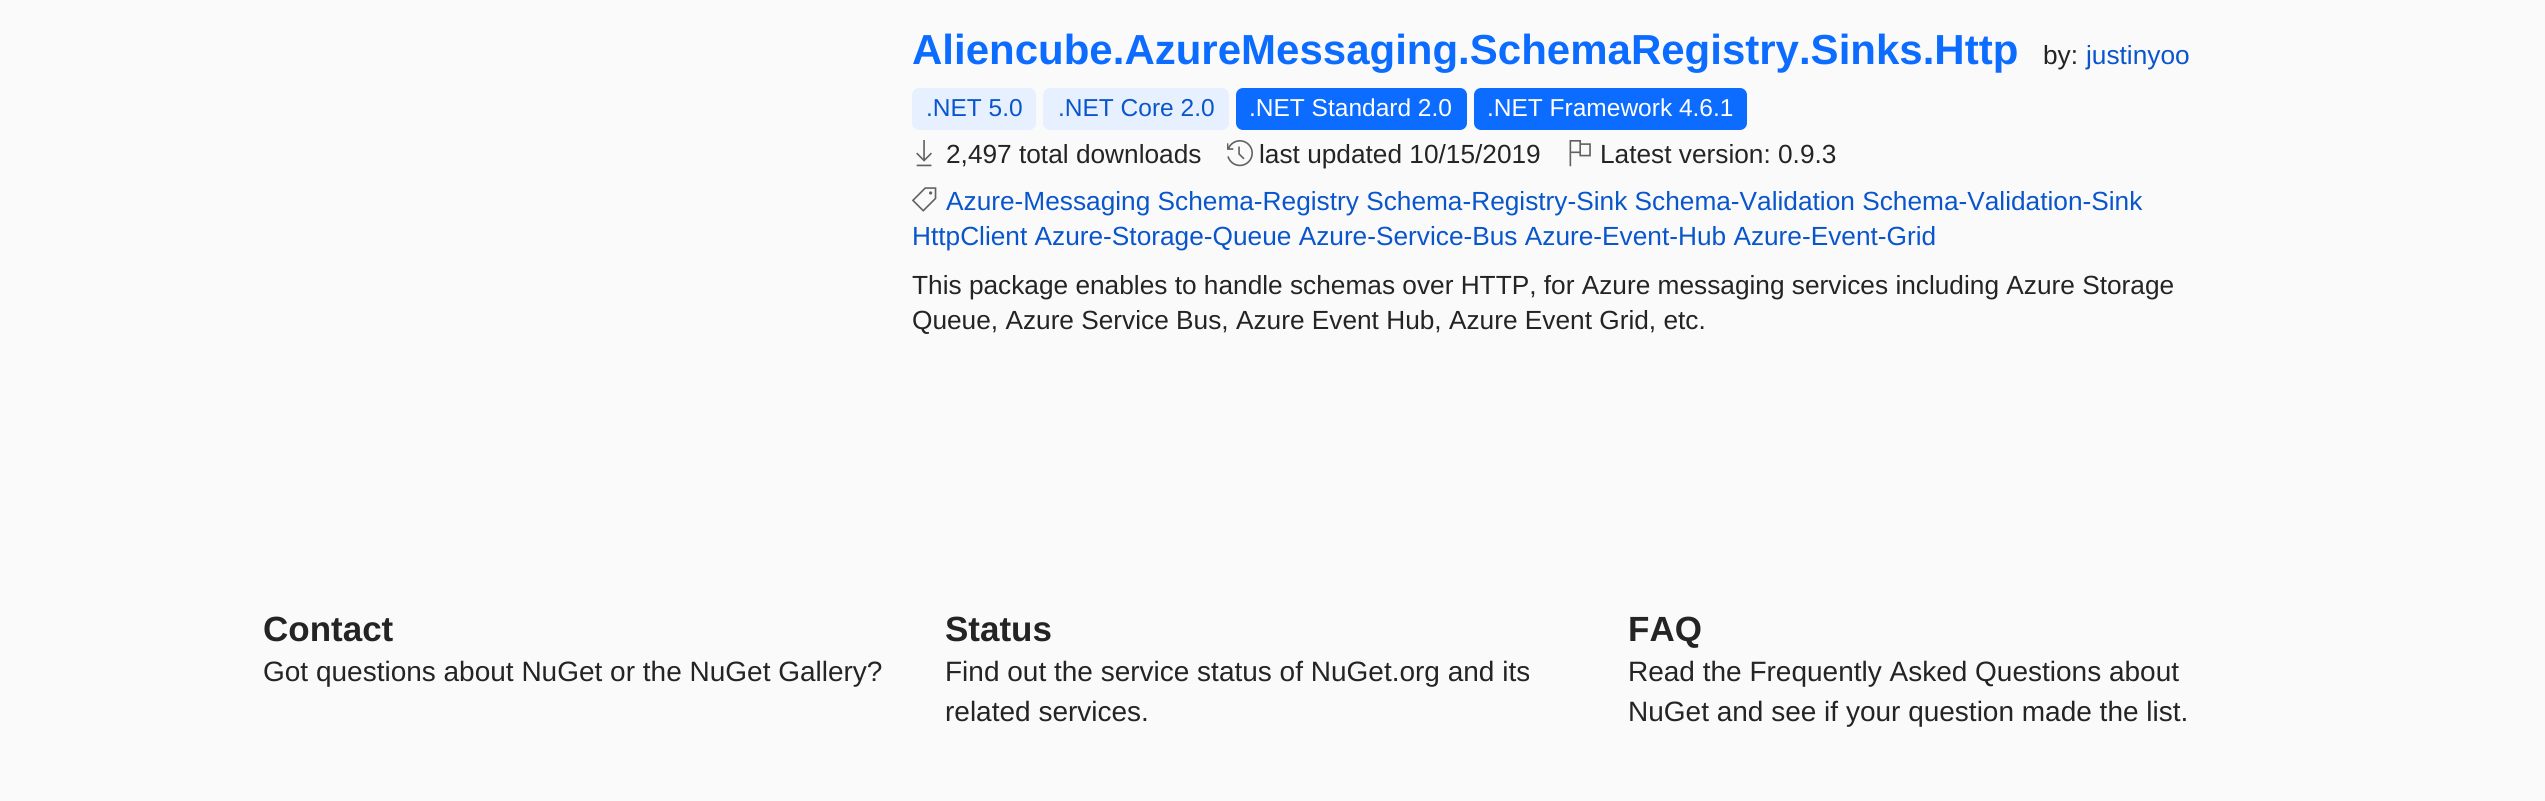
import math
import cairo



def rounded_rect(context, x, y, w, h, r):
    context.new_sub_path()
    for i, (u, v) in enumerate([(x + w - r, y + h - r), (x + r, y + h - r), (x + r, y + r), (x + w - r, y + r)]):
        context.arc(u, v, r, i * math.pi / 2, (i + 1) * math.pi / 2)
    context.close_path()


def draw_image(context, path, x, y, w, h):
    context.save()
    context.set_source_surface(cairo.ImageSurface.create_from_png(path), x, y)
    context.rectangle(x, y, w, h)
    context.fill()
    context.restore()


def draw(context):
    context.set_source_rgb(250 / 255, 250 / 255, 250 / 255)
    context.paint()
    context.set_source_rgb(231 / 255, 240 / 255, 1)
    rounded_rect(context, 912, 88, 124, 42, 7)
    context.fill()
    rounded_rect(context, 1043, 88, 186, 42, 7)
    context.fill()
    context.set_source_rgb(11 / 255, 108 / 255, 1)
    rounded_rect(context, 1236, 88, 231, 42, 7)
    context.fill()
    rounded_rect(context, 1474, 88, 273, 42, 7)
    context.fill()
    draw_image(context, "images/1.png", 916, 140, 16, 27)
    draw_image(context, "images/2.png", 1227, 140, 26, 27)
    draw_image(context, "images/3.png", 1569, 140, 22, 27)
    draw_image(context, "images/4.png", 911, 187, 26, 25)
    context.select_font_face("Liberation Sans", cairo.FontSlant.NORMAL, cairo.FontWeight.BOLD)
    context.set_font_size(42)
    context.move_to(912, 64)
    context.show_text("Aliencube.AzureMessaging.SchemaRegistry.Sinks.Http")
    context.select_font_face("Liberation Sans")
    context.set_font_size(26.25)
    context.set_source_rgb(36 / 255, 36 / 255, 36 / 255)
    context.move_to(2043, 64)
    context.show_text("by:")
    context.set_source_rgb(9 / 255, 86 / 255, 204 / 255)
    context.move_to(2086, 64)
    context.show_text("justinyoo")
    context.set_font_size(24.5)
    context.move_to(926, 116)
    context.show_text(".NET 5.0")
    context.move_to(1058, 116)
    context.show_text(".NET Core 2.0")
    context.set_source_rgb(1, 1, 1)
    context.move_to(1249, 116)
    context.show_text(".NET Standard 2.0")
    context.move_to(1487, 116)
    context.show_text(".NET Framework 4.6.1")
    context.set_font_size(26.25)
    context.set_source_rgb(36 / 255, 36 / 255, 36 / 255)
    context.move_to(946, 163)
    context.show_text("2,497 total downloads")
    context.move_to(1259, 163)
    context.show_text("last updated 10/15/2019")
    context.move_to(1600, 163)
    context.show_text("Latest version: 0.9.3")
    context.set_source_rgb(9 / 255, 86 / 255, 204 / 255)
    context.move_to(946, 210)
    context.show_text("Azure-Messaging Schema-Registry Schema-Registry-Sink Schema-Validation Schema-Validation-Sink")
    context.move_to(912, 245)
    context.show_text("HttpClient Azure-Storage-Queue Azure-Service-Bus Azure-Event-Hub Azure-Event-Grid")
    context.set_source_rgb(36 / 255, 36 / 255, 36 / 255)
    context.move_to(912, 294)
    context.show_text("This package enables to handle schemas over HTTP, for Azure messaging services including Azure Storage")
    context.move_to(912, 329)
    context.show_text("Queue, Azure Service Bus, Azure Event Hub, Azure Event Grid, etc.")
    context.select_font_face("Liberation Sans", cairo.FontSlant.NORMAL, cairo.FontWeight.BOLD)
    context.set_font_size(35)
    context.move_to(263, 641)
    context.show_text("Contact")
    context.select_font_face("Liberation Sans")
    context.set_font_size(28)
    context.move_to(263, 681)
    context.show_text("Got questions about NuGet or the NuGet Gallery?")
    context.select_font_face("Liberation Sans", cairo.FontSlant.NORMAL, cairo.FontWeight.BOLD)
    context.set_font_size(35)
    context.move_to(945, 641)
    context.show_text("Status")
    context.select_font_face("Liberation Sans")
    context.set_font_size(28)
    context.move_to(945, 681)
    context.show_text("Find out the service status of NuGet.org and its")
    context.move_to(945, 721)
    context.show_text("related services.")
    context.select_font_face("Liberation Sans", cairo.FontSlant.NORMAL, cairo.FontWeight.BOLD)
    context.set_font_size(35)
    context.move_to(1628, 641)
    context.show_text("FAQ")
    context.select_font_face("Liberation Sans")
    context.set_font_size(28)
    context.move_to(1628, 681)
    context.show_text("Read the Frequently Asked Questions about")
    context.move_to(1628, 721)
    context.show_text("NuGet and see if your question made the list.")


surface = cairo.ImageSurface(cairo.Format.RGB24, 2545, 801)
context = cairo.Context(surface)
options = cairo.FontOptions()
options.set_hint_metrics(cairo.HintMetrics.OFF)
options.set_hint_style(cairo.HintStyle.NONE)
context.set_font_options(options)
context.set_miter_limit(4)
draw(context)
surface.write_to_png("out.png")
